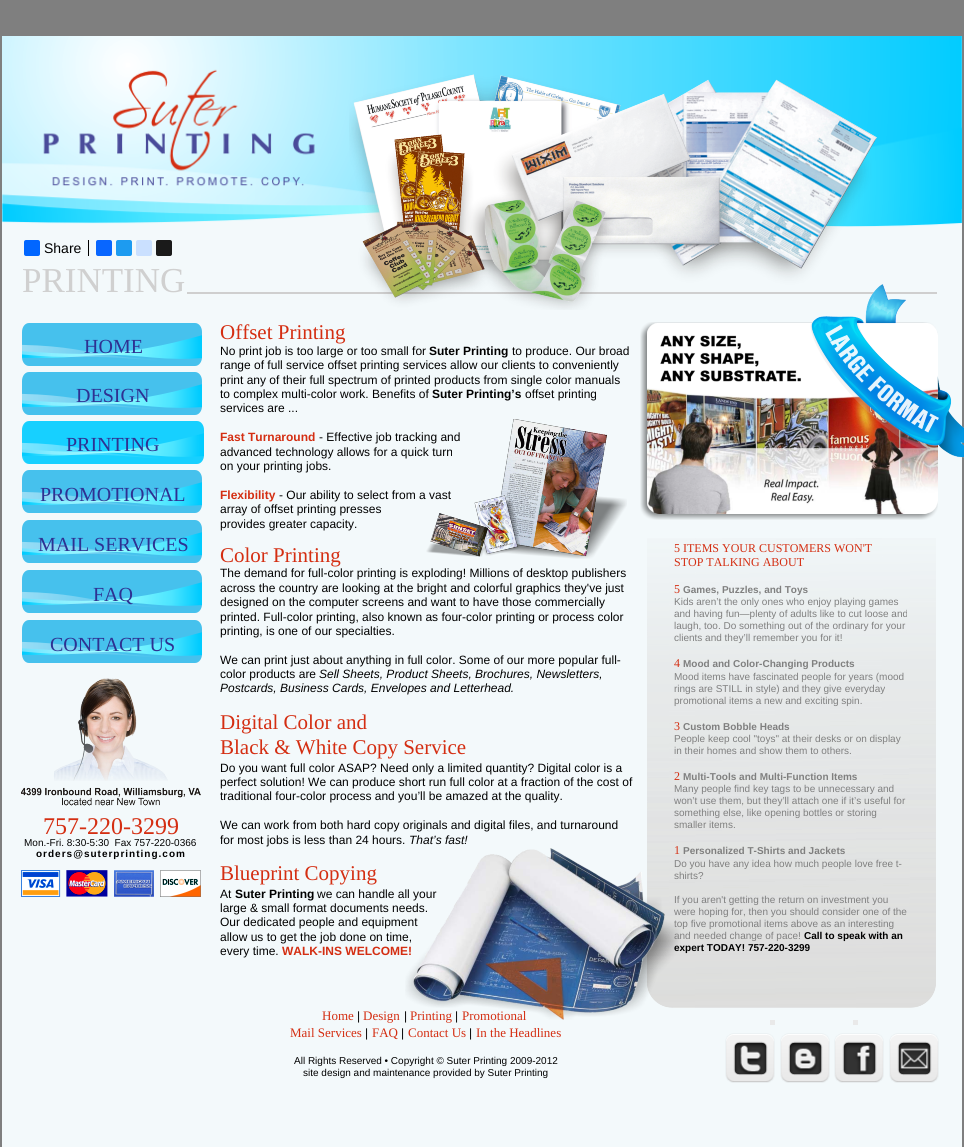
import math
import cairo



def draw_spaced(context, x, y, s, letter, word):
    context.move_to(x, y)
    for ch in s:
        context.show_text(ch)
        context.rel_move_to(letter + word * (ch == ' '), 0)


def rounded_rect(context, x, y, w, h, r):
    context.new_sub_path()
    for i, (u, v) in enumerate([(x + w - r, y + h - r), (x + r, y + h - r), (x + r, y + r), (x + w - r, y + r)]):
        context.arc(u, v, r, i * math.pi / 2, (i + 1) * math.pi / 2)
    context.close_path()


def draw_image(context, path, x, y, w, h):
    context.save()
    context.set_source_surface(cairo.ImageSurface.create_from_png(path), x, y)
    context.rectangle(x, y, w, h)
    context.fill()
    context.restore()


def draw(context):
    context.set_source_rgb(127 / 255, 127 / 255, 127 / 255)
    context.paint()
    context.set_source_rgb(243 / 255, 249 / 255, 251 / 255)
    context.rectangle(2, 36, 960, 1111)
    context.fill()
    draw_image(context, "images/1.png", 2, 36, 961, 191)
    context.set_source_rgb(1 / 255, 102 / 255, 1)
    rounded_rect(context, 24, 240, 16, 16, 2)
    context.fill()
    context.set_source_rgb(0, 0, 0)
    context.rectangle(88, 240, 1, 16)
    context.fill()
    context.set_source_rgb(8 / 255, 102 / 255, 1)
    rounded_rect(context, 96, 240, 16, 16, 2)
    context.fill()
    context.set_source_rgb(29 / 255, 155 / 255, 240 / 255)
    rounded_rect(context, 116, 240, 16, 16, 2)
    context.fill()
    context.set_source_rgb(202 / 255, 224 / 255, 1)
    rounded_rect(context, 136, 240, 16, 16, 2)
    context.fill()
    context.set_source_rgb(26 / 255, 26 / 255, 26 / 255)
    rounded_rect(context, 156, 240, 16, 16, 2)
    context.fill()
    context.set_source_rgb(207 / 255, 207 / 255, 207 / 255)
    context.rectangle(187, 292, 750, 2)
    context.fill()
    draw_image(context, "images/8.png", 640, 322, 298, 198)
    draw_image(context, "images/3.png", 810, 284, 154, 174)
    draw_image(context, "images/2.png", 349, 74, 528, 236)
    draw_image(context, "images/4.png", 22, 323, 180, 43)
    draw_image(context, "images/4.png", 22, 372, 180, 43)
    draw_image(context, "images/5.png", 22, 421, 182, 43)
    draw_image(context, "images/4.png", 22, 470, 180, 43)
    draw_image(context, "images/4.png", 22, 520, 180, 43)
    draw_image(context, "images/4.png", 22, 570, 180, 43)
    draw_image(context, "images/4.png", 22, 620, 180, 43)
    draw_image(context, "images/9.png", 647, 538, 289, 470)
    draw_image(context, "images/10.png", 21, 678, 180, 128)
    draw_image(context, "images/11.png", 21, 870, 180, 27)
    context.set_source_rgb(233 / 255, 233 / 255, 233 / 255)
    context.rectangle(770, 1020, 5, 5)
    context.fill()
    context.rectangle(853, 1020, 5, 5)
    context.fill()
    draw_image(context, "images/12.png", 725, 1033, 50, 50)
    draw_image(context, "images/13.png", 780, 1033, 50, 50)
    draw_image(context, "images/14.png", 834, 1033, 50, 50)
    draw_image(context, "images/15.png", 889, 1033, 50, 50)
    context.select_font_face("Liberation Sans")
    context.set_font_size(14)
    context.set_source_rgb(0, 0, 0)
    context.move_to(44, 253)
    context.show_text("Share")
    context.select_font_face("Liberation Serif")
    context.set_font_size(35)
    context.set_source_rgb(208 / 255, 208 / 255, 208 / 255)
    context.move_to(22, 292)
    context.show_text("PRINTING")
    context.set_font_size(20)
    context.set_source_rgb(46 / 255, 49 / 255, 146 / 255)
    context.move_to(84, 353)
    context.show_text("HOME")
    context.move_to(76, 402)
    context.show_text("DESIGN")
    context.move_to(66, 451)
    context.show_text("PRINTING")
    context.move_to(40, 501)
    context.show_text("PROMOTIONAL")
    context.move_to(38, 551)
    context.show_text("MAIL SERVICES")
    context.move_to(93, 601)
    context.show_text("FAQ")
    context.move_to(50, 651)
    context.show_text("CONTACT US")
    context.set_font_size(21)
    context.set_source_rgb(212 / 255, 46 / 255, 18 / 255)
    context.move_to(220, 339)
    context.show_text("Offset Printing")
    context.select_font_face("Liberation Sans")
    context.set_font_size(12)
    context.set_source_rgb(0, 0, 0)
    context.move_to(220, 355)
    context.show_text("No print job is too large or too small for")
    context.select_font_face("Liberation Sans", cairo.FontSlant.NORMAL, cairo.FontWeight.BOLD)
    context.move_to(429, 355)
    context.show_text("Suter Printing")
    context.select_font_face("Liberation Sans")
    context.move_to(512, 355)
    context.show_text("to produce. Our broad")
    context.move_to(220, 369)
    context.show_text("range of full service offset printing services allow our clients to conveniently")
    context.move_to(220, 384)
    context.show_text("print any of their full spectrum of printed products from single color manuals")
    context.move_to(220, 398)
    context.show_text("to complex multi-color work. Benefits of")
    context.select_font_face("Liberation Sans", cairo.FontSlant.NORMAL, cairo.FontWeight.BOLD)
    context.move_to(432, 398)
    context.show_text("Suter Printing’s")
    context.select_font_face("Liberation Sans")
    context.move_to(525, 398)
    context.show_text("offset printing")
    context.move_to(220, 412)
    context.show_text("services are ...")
    context.select_font_face("Liberation Sans", cairo.FontSlant.NORMAL, cairo.FontWeight.BOLD)
    context.set_source_rgb(212 / 255, 46 / 255, 18 / 255)
    context.move_to(220, 441)
    context.show_text("Fast Turnaround")
    context.select_font_face("Liberation Sans")
    context.set_source_rgb(0, 0, 0)
    context.move_to(319, 441)
    context.show_text("- Effective job tracking and")
    context.move_to(220, 456)
    context.show_text("advanced technology allows for a quick turn")
    context.move_to(220, 470)
    context.show_text("on your printing jobs.")
    context.select_font_face("Liberation Sans", cairo.FontSlant.NORMAL, cairo.FontWeight.BOLD)
    context.set_source_rgb(212 / 255, 46 / 255, 18 / 255)
    context.move_to(220, 499)
    context.show_text("Flexibility")
    context.select_font_face("Liberation Sans")
    context.set_source_rgb(0, 0, 0)
    context.move_to(279, 499)
    context.show_text("- Our ability to select from a vast")
    context.move_to(220, 513)
    context.show_text("array of offset printing presses")
    context.move_to(220, 528)
    context.show_text("provides greater capacity.")
    context.select_font_face("Liberation Serif")
    context.set_font_size(21)
    context.set_source_rgb(212 / 255, 46 / 255, 18 / 255)
    context.move_to(220, 562)
    context.show_text("Color Printing")
    context.select_font_face("Liberation Sans")
    context.set_font_size(12)
    context.set_source_rgb(0, 0, 0)
    context.move_to(220, 577)
    context.show_text("The demand for full-color printing is exploding! Millions of desktop publishers")
    context.move_to(220, 592)
    context.show_text("across the country are looking at the bright and colorful graphics they've just")
    context.move_to(220, 606)
    context.show_text("designed on the computer screens and want to have those commercially")
    context.move_to(220, 621)
    context.show_text("printed. Full-color printing, also known as four-color printing or process color")
    context.move_to(220, 635)
    context.show_text("printing, is one of our specialties.")
    context.move_to(220, 664)
    context.show_text("We can print just about anything in full color. Some of our more popular full-")
    context.move_to(220, 678)
    context.show_text("color products are")
    context.select_font_face("Liberation Sans", cairo.FontSlant.ITALIC)
    context.move_to(319, 678)
    context.show_text("Sell Sheets, Product Sheets, Brochures, Newsletters,")
    context.move_to(220, 692)
    context.show_text("Postcards, Business Cards, Envelopes and Letterhead.")
    context.select_font_face("Liberation Serif")
    context.set_font_size(21)
    context.set_source_rgb(212 / 255, 46 / 255, 18 / 255)
    context.move_to(220, 729)
    context.show_text("Digital Color and")
    context.move_to(220, 754)
    context.show_text("Black & White Copy Service")
    context.select_font_face("Liberation Sans")
    context.set_font_size(12)
    context.set_source_rgb(0, 0, 0)
    context.move_to(220, 772)
    context.show_text("Do you want full color ASAP? Need only a limited quantity? Digital color is a")
    context.move_to(220, 786)
    context.show_text("perfect solution! We can produce short run full color at a fraction of the cost of")
    context.move_to(220, 800)
    context.show_text("traditional four-color process and you’ll be amazed at the quality.")
    context.move_to(220, 829)
    context.show_text("We can work from both hard copy originals and digital files, and turnaround")
    context.move_to(220, 844)
    context.show_text("for most jobs is less than 24 hours.")
    context.select_font_face("Liberation Sans", cairo.FontSlant.ITALIC)
    context.move_to(409, 844)
    context.show_text("That’s fast!")
    context.select_font_face("Liberation Serif")
    context.set_font_size(21)
    context.set_source_rgb(212 / 255, 46 / 255, 18 / 255)
    context.move_to(220, 880)
    context.show_text("Blueprint Copying")
    context.select_font_face("Liberation Sans")
    context.set_font_size(12)
    context.set_source_rgb(0, 0, 0)
    context.move_to(220, 898)
    context.show_text("At")
    context.select_font_face("Liberation Sans", cairo.FontSlant.NORMAL, cairo.FontWeight.BOLD)
    context.move_to(235, 898)
    context.show_text("Suter Printing")
    context.select_font_face("Liberation Sans")
    context.move_to(317, 898)
    context.show_text("we can handle all your")
    context.move_to(220, 912)
    context.show_text("large & small format documents needs.")
    context.move_to(220, 926)
    context.show_text("Our dedicated people and equipment")
    context.move_to(220, 941)
    context.show_text("allow us to get the job done on time,")
    context.move_to(220, 955)
    context.show_text("every time.")
    context.select_font_face("Liberation Sans", cairo.FontSlant.NORMAL, cairo.FontWeight.BOLD)
    context.set_source_rgb(212 / 255, 46 / 255, 18 / 255)
    context.move_to(282, 955)
    context.show_text("WALK-INS WELCOME!")
    draw_image(context, "images/6.png", 426, 419, 201, 140)
    draw_image(context, "images/7.png", 405, 848, 276, 172)
    context.select_font_face("Liberation Serif")
    context.move_to(674, 552)
    context.show_text("5 ITEMS YOUR CUSTOMERS WON'T")
    context.move_to(674, 566)
    context.show_text("STOP TALKING ABOUT")
    context.move_to(674, 593)
    context.show_text("5")
    context.select_font_face("Liberation Sans", cairo.FontSlant.NORMAL, cairo.FontWeight.BOLD)
    context.set_font_size(10)
    context.set_source_rgb(127 / 255, 127 / 255, 127 / 255)
    context.move_to(683, 593)
    context.show_text("Games, Puzzles, and Toys")
    context.select_font_face("Liberation Sans")
    context.move_to(674, 605)
    context.show_text("Kids aren’t the only ones who enjoy playing games")
    context.move_to(674, 617)
    context.show_text("and having fun—plenty of adults like to cut loose and")
    context.move_to(674, 629)
    context.show_text("laugh, too. Do something out of the ordinary for your")
    context.move_to(674, 641)
    context.show_text("clients and they’ll remember you for it!")
    context.select_font_face("Liberation Serif")
    context.set_font_size(12)
    context.set_source_rgb(212 / 255, 46 / 255, 18 / 255)
    context.move_to(674, 667)
    context.show_text("4")
    context.select_font_face("Liberation Sans", cairo.FontSlant.NORMAL, cairo.FontWeight.BOLD)
    context.set_font_size(10)
    context.set_source_rgb(127 / 255, 127 / 255, 127 / 255)
    context.move_to(683, 667)
    context.show_text("Mood and Color-Changing Products")
    context.select_font_face("Liberation Sans")
    context.move_to(674, 680)
    context.show_text("Mood items have fascinated people for years (mood")
    context.move_to(674, 692)
    context.show_text("rings are STILL in style) and they give everyday")
    context.move_to(674, 704)
    context.show_text("promotional items a new and exciting spin.")
    context.select_font_face("Liberation Serif")
    context.set_font_size(12)
    context.set_source_rgb(212 / 255, 46 / 255, 18 / 255)
    context.move_to(674, 730)
    context.show_text("3")
    context.select_font_face("Liberation Sans", cairo.FontSlant.NORMAL, cairo.FontWeight.BOLD)
    context.set_font_size(10)
    context.set_source_rgb(127 / 255, 127 / 255, 127 / 255)
    context.move_to(683, 730)
    context.show_text("Custom Bobble Heads")
    context.select_font_face("Liberation Sans")
    context.move_to(674, 742)
    context.show_text("People keep cool \"toys\" at their desks or on display")
    context.move_to(674, 754)
    context.show_text("in their homes and show them to others.")
    context.select_font_face("Liberation Serif")
    context.set_font_size(12)
    context.set_source_rgb(212 / 255, 46 / 255, 18 / 255)
    context.move_to(674, 780)
    context.show_text("2")
    context.select_font_face("Liberation Sans", cairo.FontSlant.NORMAL, cairo.FontWeight.BOLD)
    context.set_font_size(10)
    context.set_source_rgb(127 / 255, 127 / 255, 127 / 255)
    context.move_to(683, 780)
    context.show_text("Multi-Tools and Multi-Function Items")
    context.select_font_face("Liberation Sans")
    context.move_to(674, 792)
    context.show_text("Many people find key tags to be unnecessary and")
    context.move_to(674, 804)
    context.show_text("won’t use them, but they’ll attach one if it’s useful for")
    context.move_to(674, 816)
    context.show_text("something else, like opening bottles or storing")
    context.move_to(674, 828)
    context.show_text("smaller items.")
    context.select_font_face("Liberation Serif")
    context.set_font_size(12)
    context.set_source_rgb(212 / 255, 46 / 255, 18 / 255)
    context.move_to(674, 854)
    context.show_text("1")
    context.select_font_face("Liberation Sans", cairo.FontSlant.NORMAL, cairo.FontWeight.BOLD)
    context.set_font_size(10)
    context.set_source_rgb(127 / 255, 127 / 255, 127 / 255)
    context.move_to(683, 854)
    context.show_text("Personalized T-Shirts and Jackets")
    context.select_font_face("Liberation Sans")
    context.move_to(674, 867)
    context.show_text("Do you have any idea how much people love free t-")
    context.move_to(674, 879)
    context.show_text("shirts?")
    context.move_to(674, 903)
    context.show_text("If you aren't getting the return on investment you")
    context.move_to(674, 915)
    context.show_text("were hoping for, then you should consider one of the")
    context.move_to(674, 927)
    context.show_text("top five promotional items above as an interesting")
    context.move_to(674, 939)
    context.show_text("and needed change of pace!")
    context.select_font_face("Liberation Sans", cairo.FontSlant.NORMAL, cairo.FontWeight.BOLD)
    context.set_source_rgb(0, 0, 0)
    context.move_to(804, 939)
    context.show_text("Call to speak with an")
    context.move_to(674, 951)
    context.show_text("expert TODAY! 757-220-3299")
    context.select_font_face("Liberation Serif")
    context.set_font_size(24)
    context.set_source_rgb(212 / 255, 46 / 255, 18 / 255)
    context.move_to(43, 834)
    context.show_text("757-220-3299")
    context.select_font_face("Liberation Sans")
    context.set_font_size(10)
    context.set_source_rgb(0, 0, 0)
    context.move_to(24, 846)
    context.show_text("Mon.-Fri. 8:30-5:30  Fax 757-220-0366")
    context.select_font_face("Liberation Sans", cairo.FontSlant.NORMAL, cairo.FontWeight.BOLD)
    draw_spaced(context, 36, 857, "orders@suterprinting.com", 1, 0)
    context.select_font_face("Liberation Serif")
    context.set_font_size(13)
    context.set_source_rgb(212 / 255, 46 / 255, 18 / 255)
    context.move_to(322, 1020)
    context.show_text("Home")
    context.select_font_face("Liberation Sans")
    context.set_font_size(12)
    context.set_source_rgb(0, 0, 0)
    context.move_to(357, 1020)
    context.show_text("|")
    context.select_font_face("Liberation Serif")
    context.set_font_size(13)
    context.set_source_rgb(212 / 255, 46 / 255, 18 / 255)
    context.move_to(363, 1020)
    context.show_text("Design")
    context.select_font_face("Liberation Sans")
    context.set_font_size(12)
    context.set_source_rgb(0, 0, 0)
    context.move_to(404, 1020)
    context.show_text("|")
    context.select_font_face("Liberation Serif")
    context.set_font_size(13)
    context.set_source_rgb(212 / 255, 46 / 255, 18 / 255)
    context.move_to(410, 1020)
    context.show_text("Printing")
    context.select_font_face("Liberation Sans")
    context.set_font_size(12)
    context.set_source_rgb(0, 0, 0)
    context.move_to(455, 1020)
    context.show_text("|")
    context.select_font_face("Liberation Serif")
    context.set_font_size(13)
    context.set_source_rgb(212 / 255, 46 / 255, 18 / 255)
    context.move_to(462, 1020)
    context.show_text("Promotional")
    context.move_to(290, 1037)
    context.show_text("Mail Services")
    context.select_font_face("Liberation Sans")
    context.set_font_size(12)
    context.set_source_rgb(0, 0, 0)
    context.move_to(365, 1037)
    context.show_text("|")
    context.select_font_face("Liberation Serif")
    context.set_font_size(13)
    context.set_source_rgb(212 / 255, 46 / 255, 18 / 255)
    context.move_to(372, 1037)
    context.show_text("FAQ")
    context.select_font_face("Liberation Sans")
    context.set_font_size(12)
    context.set_source_rgb(0, 0, 0)
    context.move_to(401, 1037)
    context.show_text("|")
    context.select_font_face("Liberation Serif")
    context.set_font_size(13)
    context.set_source_rgb(212 / 255, 46 / 255, 18 / 255)
    context.move_to(408, 1037)
    context.show_text("Contact Us")
    context.select_font_face("Liberation Sans")
    context.set_font_size(12)
    context.set_source_rgb(0, 0, 0)
    context.move_to(469, 1037)
    context.show_text("|")
    context.select_font_face("Liberation Serif")
    context.set_font_size(13)
    context.set_source_rgb(212 / 255, 46 / 255, 18 / 255)
    context.move_to(476, 1037)
    context.show_text("In the Headlines")
    context.select_font_face("Liberation Sans")
    context.set_font_size(10)
    context.set_source_rgb(0, 0, 0)
    context.move_to(294, 1064)
    context.show_text("All Rights Reserved • Copyright © Suter Printing 2009-2012")
    context.move_to(303, 1076)
    context.show_text("site design and maintenance provided by Suter Printing")


surface = cairo.ImageSurface(cairo.Format.RGB24, 964, 1147)
context = cairo.Context(surface)
options = cairo.FontOptions()
options.set_hint_metrics(cairo.HintMetrics.OFF)
options.set_hint_style(cairo.HintStyle.NONE)
context.set_font_options(options)
context.set_miter_limit(4)
draw(context)
surface.write_to_png("out.png")
